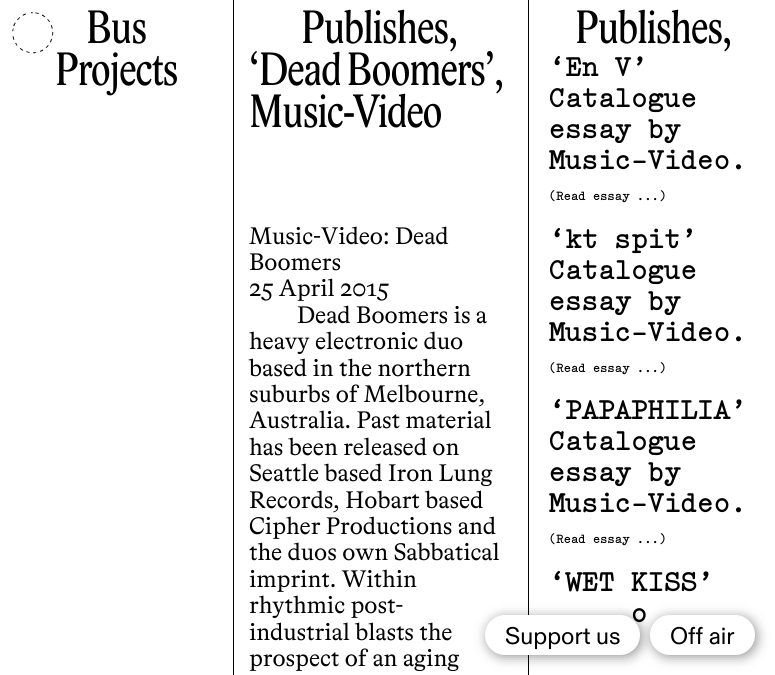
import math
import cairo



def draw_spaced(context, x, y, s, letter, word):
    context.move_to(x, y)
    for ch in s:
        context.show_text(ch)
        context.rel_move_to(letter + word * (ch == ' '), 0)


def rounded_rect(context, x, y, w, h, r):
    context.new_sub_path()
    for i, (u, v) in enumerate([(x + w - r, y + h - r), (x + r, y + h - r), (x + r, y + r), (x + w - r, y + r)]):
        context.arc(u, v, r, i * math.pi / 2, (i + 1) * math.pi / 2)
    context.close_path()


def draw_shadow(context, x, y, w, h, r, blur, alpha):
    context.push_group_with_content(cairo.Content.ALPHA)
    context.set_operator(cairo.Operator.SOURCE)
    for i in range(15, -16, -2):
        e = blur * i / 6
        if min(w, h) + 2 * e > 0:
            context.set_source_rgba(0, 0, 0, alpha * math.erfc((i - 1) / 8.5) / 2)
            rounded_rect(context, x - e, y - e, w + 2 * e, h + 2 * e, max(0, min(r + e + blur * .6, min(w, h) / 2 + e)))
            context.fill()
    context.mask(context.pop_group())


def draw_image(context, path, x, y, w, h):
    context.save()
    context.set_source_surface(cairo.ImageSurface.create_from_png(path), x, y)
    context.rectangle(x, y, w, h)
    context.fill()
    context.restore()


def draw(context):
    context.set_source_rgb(1, 1, 1)
    context.paint()
    draw_image(context, "images/1.png", 12, 12, 42, 42)
    context.set_source_rgb(0, 0, 0)
    context.rectangle(233, 0, 1, 675)
    context.fill()
    context.rectangle(528, 0, 1, 675)
    context.fill()
    context.set_source_rgb(0, 0, 0)
    draw_shadow(context, 487, 617, 155, 40, 20, 6, 0.4)
    context.select_font_face("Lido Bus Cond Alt")
    context.set_font_size(48)
    context.set_source_rgb(0, 0, 0)
    draw_spaced(context, 86, 43, "Bus", -1, 0)
    draw_spaced(context, 55, 85, "Projects", -1, 0)
    draw_spaced(context, 301, 43, "Publishes,", -1, 0)
    draw_spaced(context, 249, 85, "‘Dead Boomers’", -1, 0)
    draw_spaced(context, 494, 85, ",", -1, 0)
    draw_spaced(context, 249, 127, "Music-Video", -1, 0)
    context.select_font_face("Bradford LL")
    context.set_font_size(24)
    context.move_to(249, 244)
    context.show_text("Music-Video: Dead")
    context.move_to(249, 270)
    context.show_text("Boomers")
    context.select_font_face("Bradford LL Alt")
    context.move_to(249, 296)
    context.show_text("25 April 2015")
    context.select_font_face("Bradford LL")
    context.move_to(297, 323)
    context.show_text("Dead Boomers is a")
    context.move_to(249, 349)
    context.show_text("heavy electronic duo")
    context.move_to(249, 376)
    context.show_text("based in the northern")
    context.move_to(249, 402)
    context.show_text("suburbs of Melbourne,")
    context.move_to(249, 428)
    context.show_text("Australia. Past material")
    context.move_to(249, 455)
    context.show_text("has been released on")
    context.move_to(249, 481)
    context.show_text("Seattle based Iron Lung")
    context.move_to(249, 508)
    context.show_text("Records, Hobart based")
    context.move_to(249, 534)
    context.show_text("Cipher Productions and")
    context.move_to(249, 560)
    context.show_text("the duos own Sabbatical")
    context.move_to(249, 587)
    context.show_text("imprint. Within")
    context.move_to(249, 613)
    context.show_text("rhythmic post-")
    context.move_to(249, 640)
    context.show_text("industrial blasts the")
    context.move_to(249, 666)
    context.show_text("prospect of an aging")
    context.select_font_face("Lido Bus Cond Alt")
    context.set_font_size(48)
    draw_spaced(context, 575, 43, "Publishes,", -1, 0)
    context.select_font_face("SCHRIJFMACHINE", cairo.FontSlant.NORMAL, cairo.FontWeight.BOLD)
    context.set_font_size(27)
    context.move_to(549, 76)
    context.show_text("‘En V’")
    context.move_to(549, 107)
    context.show_text("Catalogue")
    context.move_to(549, 138)
    context.show_text("essay by")
    context.move_to(549, 169)
    context.show_text("Music-Video.")
    context.set_font_size(12)
    context.move_to(549, 200)
    context.show_text("(Read essay ...)")
    context.set_font_size(27)
    context.move_to(549, 248)
    context.show_text("‘kt spit’")
    context.move_to(549, 279)
    context.show_text("Catalogue")
    context.move_to(549, 310)
    context.show_text("essay by")
    context.move_to(549, 341)
    context.show_text("Music-Video.")
    context.set_font_size(12)
    context.move_to(549, 372)
    context.show_text("(Read essay ...)")
    context.set_font_size(27)
    context.move_to(549, 419)
    context.show_text("‘PAPAPHILIA’")
    context.move_to(549, 450)
    context.show_text("Catalogue")
    context.move_to(549, 481)
    context.show_text("essay by")
    context.move_to(549, 512)
    context.show_text("Music-Video.")
    context.set_font_size(12)
    context.move_to(549, 543)
    context.show_text("(Read essay ...)")
    context.set_font_size(27)
    context.move_to(549, 591)
    context.show_text("‘WET KISS’")
    context.move_to(631, 622)
    context.show_text("o")
    context.set_source_rgb(1, 1, 1)
    rounded_rect(context, 485, 615, 155, 40, 20)
    context.fill()
    context.select_font_face("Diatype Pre")
    context.set_font_size(24)
    context.set_source_rgb(0, 0, 0)
    context.move_to(505, 644)
    context.show_text("Support us")
    context.set_source_rgb(0, 0, 0)
    draw_shadow(context, 652, 617, 105, 40, 20, 6, 0.4)
    context.set_source_rgb(1, 1, 1)
    rounded_rect(context, 650, 615, 105, 40, 20)
    context.fill()
    context.set_source_rgb(0, 0, 0)
    context.move_to(670, 644)
    context.show_text("Off air")


surface = cairo.ImageSurface(cairo.Format.RGB24, 775, 675)
context = cairo.Context(surface)
options = cairo.FontOptions()
options.set_hint_metrics(cairo.HintMetrics.OFF)
options.set_hint_style(cairo.HintStyle.NONE)
context.set_font_options(options)
context.set_miter_limit(4)
draw(context)
surface.write_to_png("out.png")
